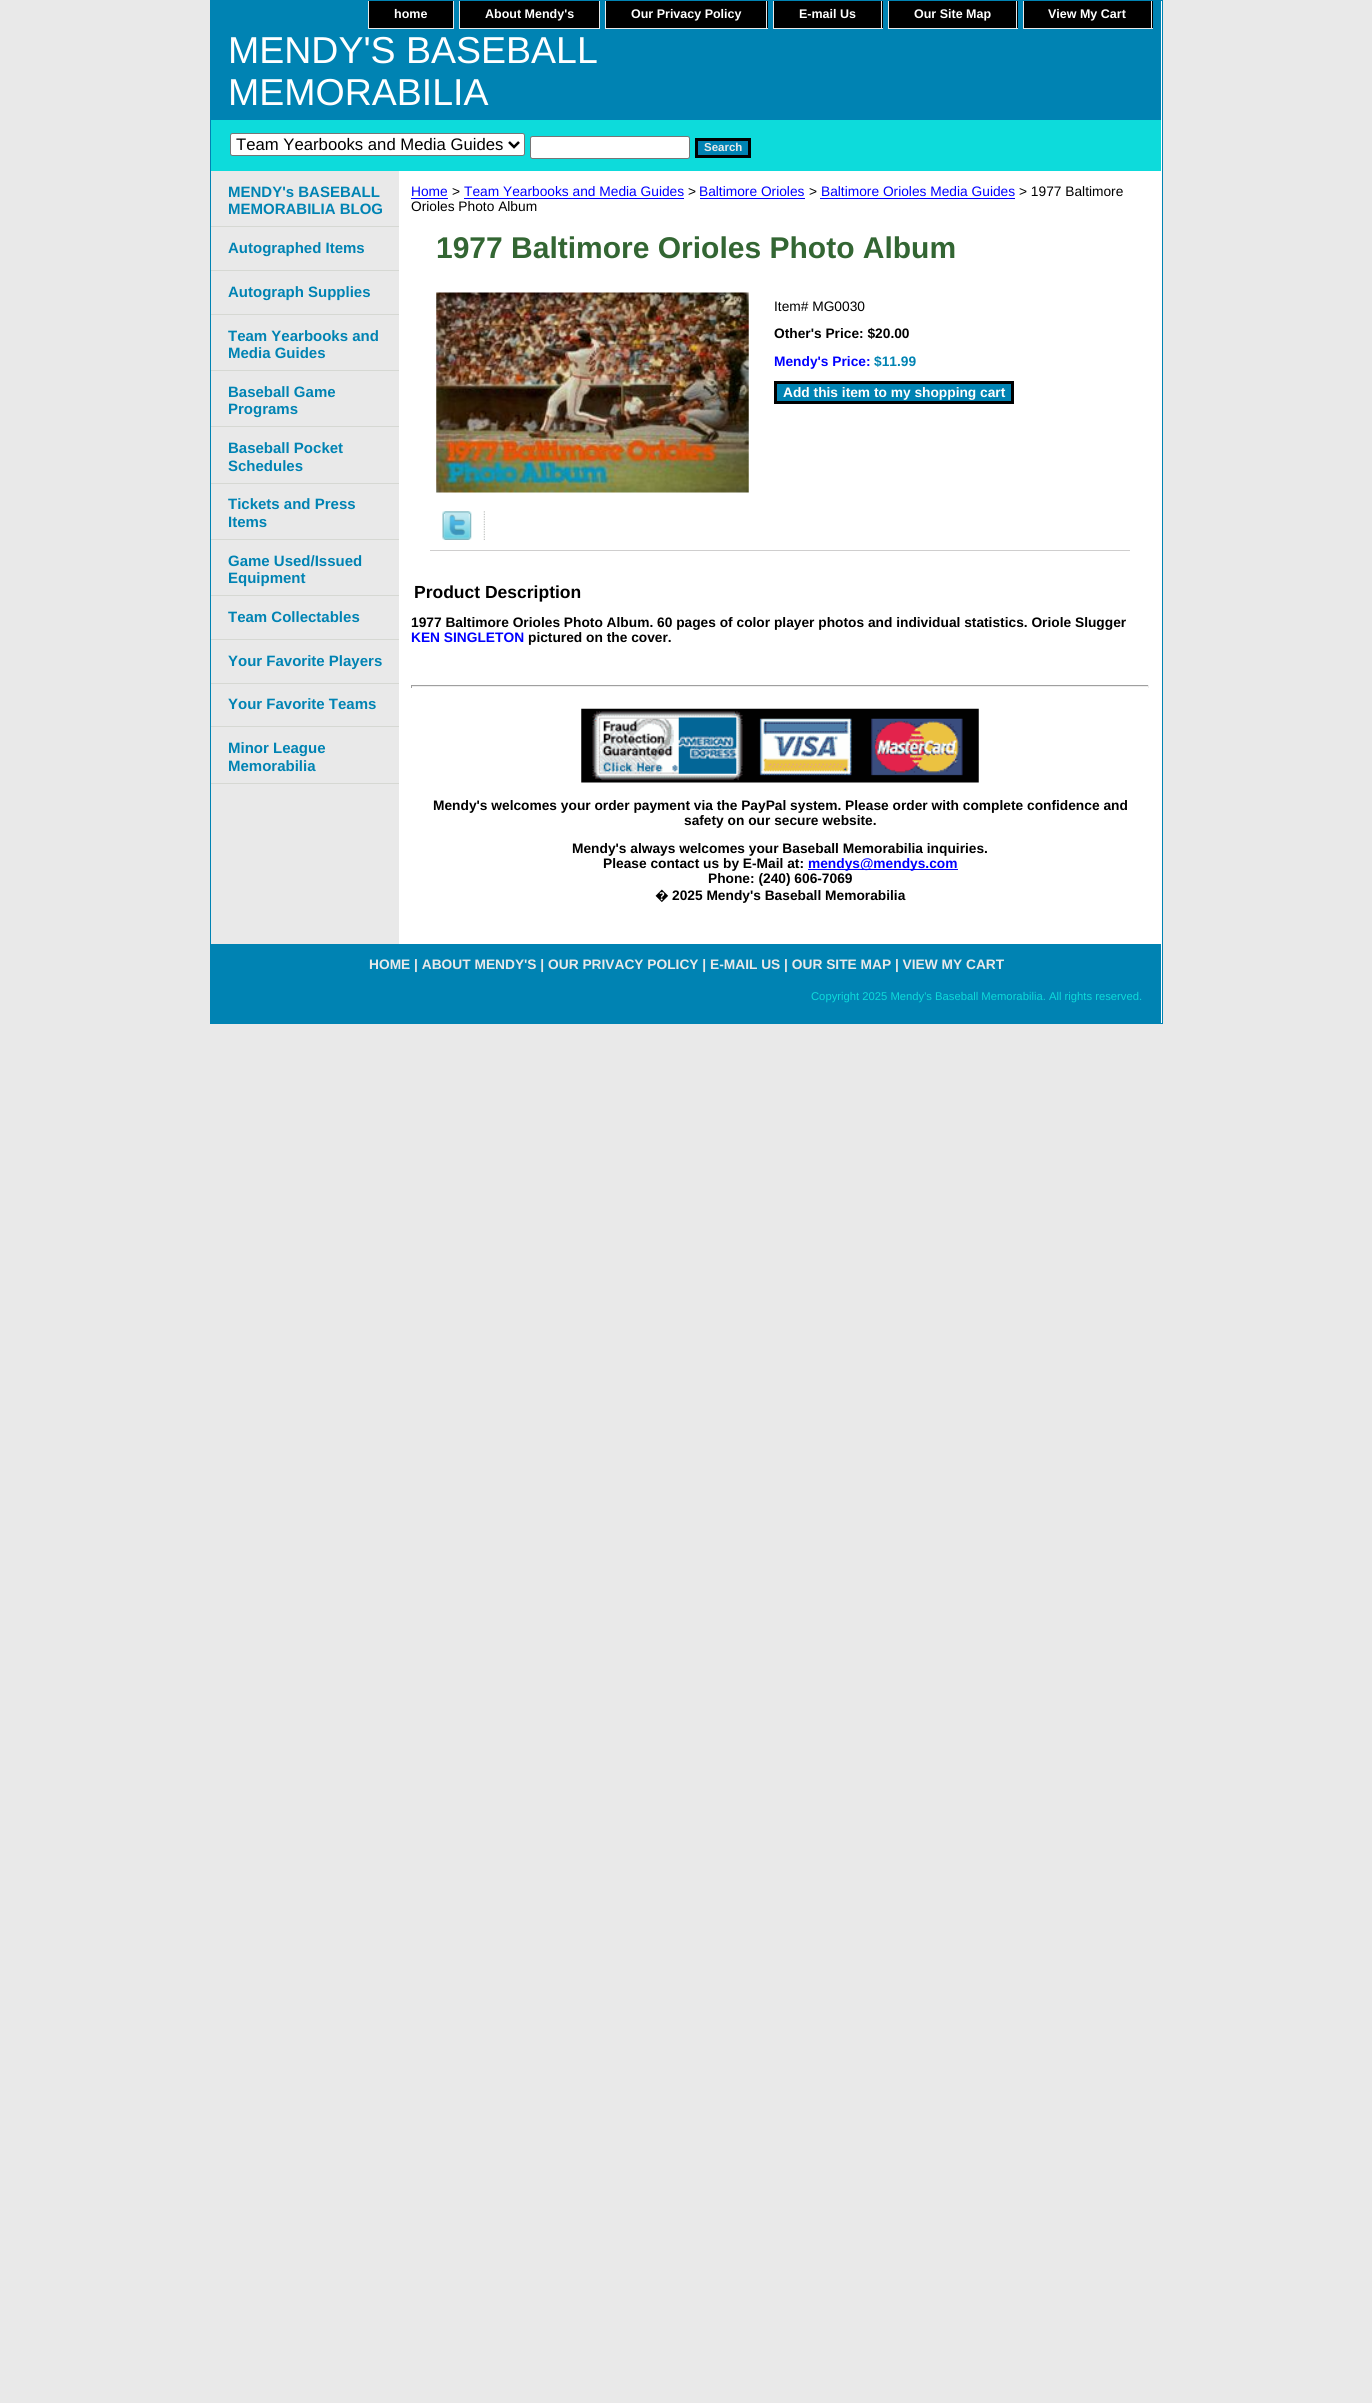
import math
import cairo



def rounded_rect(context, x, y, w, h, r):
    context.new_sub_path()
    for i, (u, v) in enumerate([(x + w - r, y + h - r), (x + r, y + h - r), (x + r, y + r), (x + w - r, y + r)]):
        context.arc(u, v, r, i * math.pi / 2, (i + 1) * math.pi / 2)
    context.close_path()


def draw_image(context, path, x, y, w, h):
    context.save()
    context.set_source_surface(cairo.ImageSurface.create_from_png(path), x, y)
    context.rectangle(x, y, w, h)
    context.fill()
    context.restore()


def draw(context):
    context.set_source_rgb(233 / 255, 233 / 255, 233 / 255)
    context.paint()
    context.set_source_rgb(1, 1, 1)
    context.rectangle(399, 1, 763, 1022)
    context.fill()
    context.rectangle(210.5, 0.5, 952, 1023)
    context.set_source_rgb(0, 131 / 255, 179 / 255)
    context.set_line_width(1)
    context.stroke()
    context.rectangle(211, 1, 950, 119)
    context.fill()
    context.set_source_rgb(0, 0, 0)
    context.rectangle(369, 1, 84, 27)
    context.fill()
    context.set_source_rgb(233 / 255, 233 / 255, 233 / 255)
    context.rectangle(453, 1, 1, 28)
    context.fill()
    context.rectangle(368, 28, 86, 1)
    context.fill()
    context.rectangle(368, 1, 1, 28)
    context.fill()
    context.set_source_rgb(0, 0, 0)
    context.rectangle(460, 1, 139, 27)
    context.fill()
    context.set_source_rgb(233 / 255, 233 / 255, 233 / 255)
    context.rectangle(599, 1, 1, 28)
    context.fill()
    context.rectangle(459, 28, 141, 1)
    context.fill()
    context.rectangle(459, 1, 1, 28)
    context.fill()
    context.set_source_rgb(0, 0, 0)
    context.rectangle(606, 1, 162, 27)
    context.fill()
    context.set_source_rgb(233 / 255, 233 / 255, 233 / 255)
    context.rectangle(766, 1, 1, 28)
    context.fill()
    context.rectangle(605, 28, 163, 1)
    context.fill()
    context.rectangle(605, 1, 1, 28)
    context.fill()
    context.set_source_rgb(0, 0, 0)
    context.rectangle(774, 1, 109, 27)
    context.fill()
    context.set_source_rgb(233 / 255, 233 / 255, 233 / 255)
    context.rectangle(881, 1, 1, 28)
    context.fill()
    context.rectangle(773, 28, 110, 1)
    context.fill()
    context.rectangle(773, 1, 1, 28)
    context.fill()
    context.set_source_rgb(0, 0, 0)
    context.rectangle(889, 1, 129, 27)
    context.fill()
    context.set_source_rgb(233 / 255, 233 / 255, 233 / 255)
    context.rectangle(1016, 1, 1, 28)
    context.fill()
    context.rectangle(888, 28, 130, 1)
    context.fill()
    context.rectangle(888, 1, 1, 28)
    context.fill()
    context.set_source_rgb(0, 0, 0)
    context.rectangle(1024, 1, 129, 27)
    context.fill()
    context.set_source_rgb(233 / 255, 233 / 255, 233 / 255)
    context.rectangle(1151, 1, 1, 28)
    context.fill()
    context.rectangle(1023, 28, 130, 1)
    context.fill()
    context.rectangle(1023, 1, 1, 28)
    context.fill()
    context.set_source_rgb(13 / 255, 219 / 255, 219 / 255)
    context.rectangle(211, 120, 950, 51)
    context.fill()
    context.set_source_rgb(1, 1, 1)
    rounded_rect(context, 230.5, 133.5, 294, 22, 2)
    context.fill_preserve()
    context.set_source_rgb(118 / 255, 118 / 255, 118 / 255)
    context.stroke()
    context.new_path()
    context.move_to(509, 142)
    context.line_to(514, 147)
    context.line_to(519, 142)
    context.set_source_rgb(0, 0, 0)
    context.set_line_width(2.5)
    context.stroke()
    context.set_source_rgb(1, 1, 1)
    rounded_rect(context, 530.5, 136.5, 159, 22, 2)
    context.fill_preserve()
    context.set_source_rgb(118 / 255, 118 / 255, 118 / 255)
    context.set_line_width(1)
    context.stroke()
    context.set_source_rgb(0, 131 / 255, 179 / 255)
    context.rectangle(696.5, 139.5, 53, 17)
    context.fill_preserve()
    context.set_source_rgb(0, 0, 0)
    context.set_line_width(3)
    context.stroke()
    context.set_source_rgb(214 / 255, 216 / 255, 211 / 255)
    context.rectangle(211, 226, 188, 1)
    context.fill()
    context.rectangle(211, 270, 188, 1)
    context.fill()
    context.rectangle(211, 314, 188, 1)
    context.fill()
    context.rectangle(211, 370, 188, 1)
    context.fill()
    context.rectangle(211, 426, 188, 1)
    context.fill()
    context.rectangle(211, 483, 188, 1)
    context.fill()
    context.rectangle(211, 539, 188, 1)
    context.fill()
    context.rectangle(211, 595, 188, 1)
    context.fill()
    context.rectangle(211, 639, 188, 1)
    context.fill()
    context.rectangle(211, 683, 188, 1)
    context.fill()
    context.rectangle(211, 726, 188, 1)
    context.fill()
    context.rectangle(211, 783, 188, 1)
    context.fill()
    context.set_source_rgb(0, 0, 1)
    context.rectangle(411, 198, 37, 1)
    context.fill()
    context.rectangle(464, 198, 220, 1)
    context.fill()
    context.rectangle(700, 198, 105, 1)
    context.fill()
    context.rectangle(820, 198, 195, 1)
    context.fill()
    draw_image(context, "images/1.png", 436, 292, 313, 201)
    context.set_source_rgb(0, 131 / 255, 179 / 255)
    context.rectangle(775.5, 382.5, 237, 20)
    context.fill_preserve()
    context.set_source_rgb(0, 0, 0)
    context.stroke()
    draw_image(context, "images/2.png", 442, 511, 30, 29)
    draw_image(context, "images/3.png", 483, 511, 2, 29)
    context.set_source_rgb(207 / 255, 206 / 255, 206 / 255)
    context.rectangle(430, 550, 700, 1)
    context.fill()
    context.set_source_rgb(159 / 255, 159 / 255, 159 / 255)
    context.rectangle(411, 685, 738, 1)
    context.fill()
    context.set_source_rgb(238 / 255, 238 / 255, 238 / 255)
    context.rectangle(1148, 685, 1, 3)
    context.fill()
    context.rectangle(411, 686, 738, 1)
    context.fill()
    context.set_source_rgb(159 / 255, 159 / 255, 159 / 255)
    context.rectangle(411, 685, 1, 3)
    context.fill()
    draw_image(context, "images/4.png", 581, 708, 398, 75)
    context.set_source_rgb(0, 0, 1)
    context.rectangle(808, 869, 150, 1)
    context.fill()
    context.set_source_rgb(0, 131 / 255, 179 / 255)
    context.rectangle(211, 944, 950, 79)
    context.fill()
    context.select_font_face("Liberation Sans", cairo.FontSlant.NORMAL, cairo.FontWeight.BOLD)
    context.set_font_size(12.5)
    context.set_source_rgb(1, 1, 1)
    context.move_to(394, 18)
    context.show_text("home")
    context.move_to(485, 18)
    context.show_text("About Mendy's")
    context.move_to(631, 18)
    context.show_text("Our Privacy Policy")
    context.move_to(799, 18)
    context.show_text("E-mail Us")
    context.move_to(914, 18)
    context.show_text("Our Site Map")
    context.move_to(1048, 18)
    context.show_text("View My Cart")
    context.select_font_face("Liberation Sans")
    context.set_font_size(37.5)
    context.move_to(228, 63)
    context.show_text("MENDY'S BASEBALL")
    context.move_to(228, 105)
    context.show_text("MEMORABILIA")
    context.set_font_size(16.7)
    context.set_source_rgb(0, 0, 0)
    context.move_to(236, 150)
    context.show_text("Team Yearbooks and Media Guides")
    context.select_font_face("Liberation Sans", cairo.FontSlant.NORMAL, cairo.FontWeight.BOLD)
    context.set_font_size(11.5)
    context.set_source_rgb(233 / 255, 233 / 255, 233 / 255)
    context.move_to(704, 151)
    context.show_text("Search")
    context.set_font_size(15)
    context.set_source_rgb(0, 131 / 255, 179 / 255)
    context.move_to(228, 197)
    context.show_text("MENDY's BASEBALL")
    context.move_to(228, 214)
    context.show_text("MEMORABILIA BLOG")
    context.move_to(228, 253)
    context.show_text("Autographed Items")
    context.move_to(228, 297)
    context.show_text("Autograph Supplies")
    context.move_to(228, 341)
    context.show_text("Team Yearbooks and")
    context.move_to(228, 358)
    context.show_text("Media Guides")
    context.move_to(228, 397)
    context.show_text("Baseball Game")
    context.move_to(228, 414)
    context.show_text("Programs")
    context.move_to(228, 453)
    context.show_text("Baseball Pocket")
    context.move_to(228, 471)
    context.show_text("Schedules")
    context.move_to(228, 509)
    context.show_text("Tickets and Press")
    context.move_to(228, 527)
    context.show_text("Items")
    context.move_to(228, 566)
    context.show_text("Game Used/Issued")
    context.move_to(228, 583)
    context.show_text("Equipment")
    context.move_to(228, 622)
    context.show_text("Team Collectables")
    context.move_to(228, 666)
    context.show_text("Your Favorite Players")
    context.move_to(228, 709)
    context.show_text("Your Favorite Teams")
    context.move_to(228, 753)
    context.show_text("Minor League")
    context.move_to(228, 771)
    context.show_text("Memorabilia")
    context.select_font_face("Liberation Sans")
    context.set_font_size(13.75)
    context.set_source_rgb(0, 0, 1)
    context.move_to(411, 196)
    context.show_text("Home")
    context.set_source_rgb(0, 0, 0)
    context.move_to(452, 196)
    context.show_text(">")
    context.set_source_rgb(0, 0, 1)
    context.move_to(464, 196)
    context.show_text("Team Yearbooks and Media Guides")
    context.set_source_rgb(0, 0, 0)
    context.move_to(688, 196)
    context.show_text(">")
    context.set_source_rgb(0, 0, 1)
    context.move_to(699, 196)
    context.show_text("Baltimore Orioles")
    context.set_source_rgb(0, 0, 0)
    context.move_to(809, 196)
    context.show_text(">")
    context.set_source_rgb(0, 0, 1)
    context.move_to(821, 196)
    context.show_text("Baltimore Orioles Media Guides")
    context.set_source_rgb(0, 0, 0)
    context.move_to(1019, 196)
    context.show_text("> 1977 Baltimore")
    context.move_to(411, 211)
    context.show_text("Orioles Photo Album")
    context.select_font_face("Liberation Sans", cairo.FontSlant.NORMAL, cairo.FontWeight.BOLD)
    context.set_font_size(30)
    context.set_source_rgb(51 / 255, 102 / 255, 51 / 255)
    context.move_to(436, 258)
    context.show_text("1977 Baltimore Orioles Photo Album")
    context.select_font_face("Liberation Sans")
    context.set_font_size(13.75)
    context.set_source_rgb(0, 0, 0)
    context.move_to(774, 311)
    context.show_text("Item# MG0030")
    context.select_font_face("Liberation Sans", cairo.FontSlant.NORMAL, cairo.FontWeight.BOLD)
    context.move_to(774, 338)
    context.show_text("Other's Price: $20.00")
    context.set_source_rgb(0, 0, 1)
    context.move_to(774, 366)
    context.show_text("Mendy's Price:")
    context.set_source_rgb(0, 131 / 255, 179 / 255)
    context.move_to(874, 366)
    context.show_text("$11.99")
    context.set_source_rgb(1, 1, 1)
    context.move_to(783, 397)
    context.show_text("Add this item to my shopping cart")
    context.set_font_size(17.5)
    context.set_source_rgb(0, 0, 0)
    context.move_to(414, 598)
    context.show_text("Product Description")
    context.set_font_size(13.75)
    context.move_to(411, 627)
    context.show_text("1977 Baltimore Orioles Photo Album. 60 pages of color player photos and individual statistics. Oriole Slugger")
    context.set_source_rgb(0, 0, 1)
    context.move_to(411, 642)
    context.show_text("KEN SINGLETON")
    context.set_source_rgb(0, 0, 0)
    context.move_to(528, 642)
    context.show_text("pictured on the cover.")
    context.move_to(433, 810)
    context.show_text("Mendy's welcomes your order payment via the PayPal system. Please order with complete confidence and")
    context.move_to(684, 825)
    context.show_text("safety on our secure website.")
    context.move_to(572, 853)
    context.show_text("Mendy's always welcomes your Baseball Memorabilia inquiries.")
    context.move_to(603, 868)
    context.show_text("Please contact us by E-Mail at:")
    context.set_source_rgb(0, 0, 1)
    context.move_to(808, 868)
    context.show_text("mendys@mendys.com")
    context.set_source_rgb(0, 0, 0)
    context.move_to(708, 883)
    context.show_text("Phone: (240) 606-7069")
    context.select_font_face("Noto Sans", cairo.FontSlant.NORMAL, cairo.FontWeight.BOLD)
    context.move_to(655, 900)
    context.show_text("�")
    context.select_font_face("Liberation Sans", cairo.FontSlant.NORMAL, cairo.FontWeight.BOLD)
    context.move_to(672, 900)
    context.show_text("2025 Mendy's Baseball Memorabilia")
    context.set_source_rgb(233 / 255, 233 / 255, 233 / 255)
    context.move_to(369, 969)
    context.show_text("HOME | ABOUT MENDY'S | OUR PRIVACY POLICY | E-MAIL US | OUR SITE MAP | VIEW MY CART")
    context.select_font_face("Liberation Sans")
    context.set_font_size(11.25)
    context.set_source_rgb(13 / 255, 219 / 255, 219 / 255)
    context.move_to(811, 1000)
    context.show_text("Copyright 2025 Mendy's Baseball Memorabilia. All rights reserved.")


surface = cairo.ImageSurface(cairo.Format.RGB24, 1372, 2403)
context = cairo.Context(surface)
options = cairo.FontOptions()
options.set_hint_metrics(cairo.HintMetrics.OFF)
options.set_hint_style(cairo.HintStyle.NONE)
context.set_font_options(options)
context.set_miter_limit(4)
draw(context)
surface.write_to_png("out.png")
